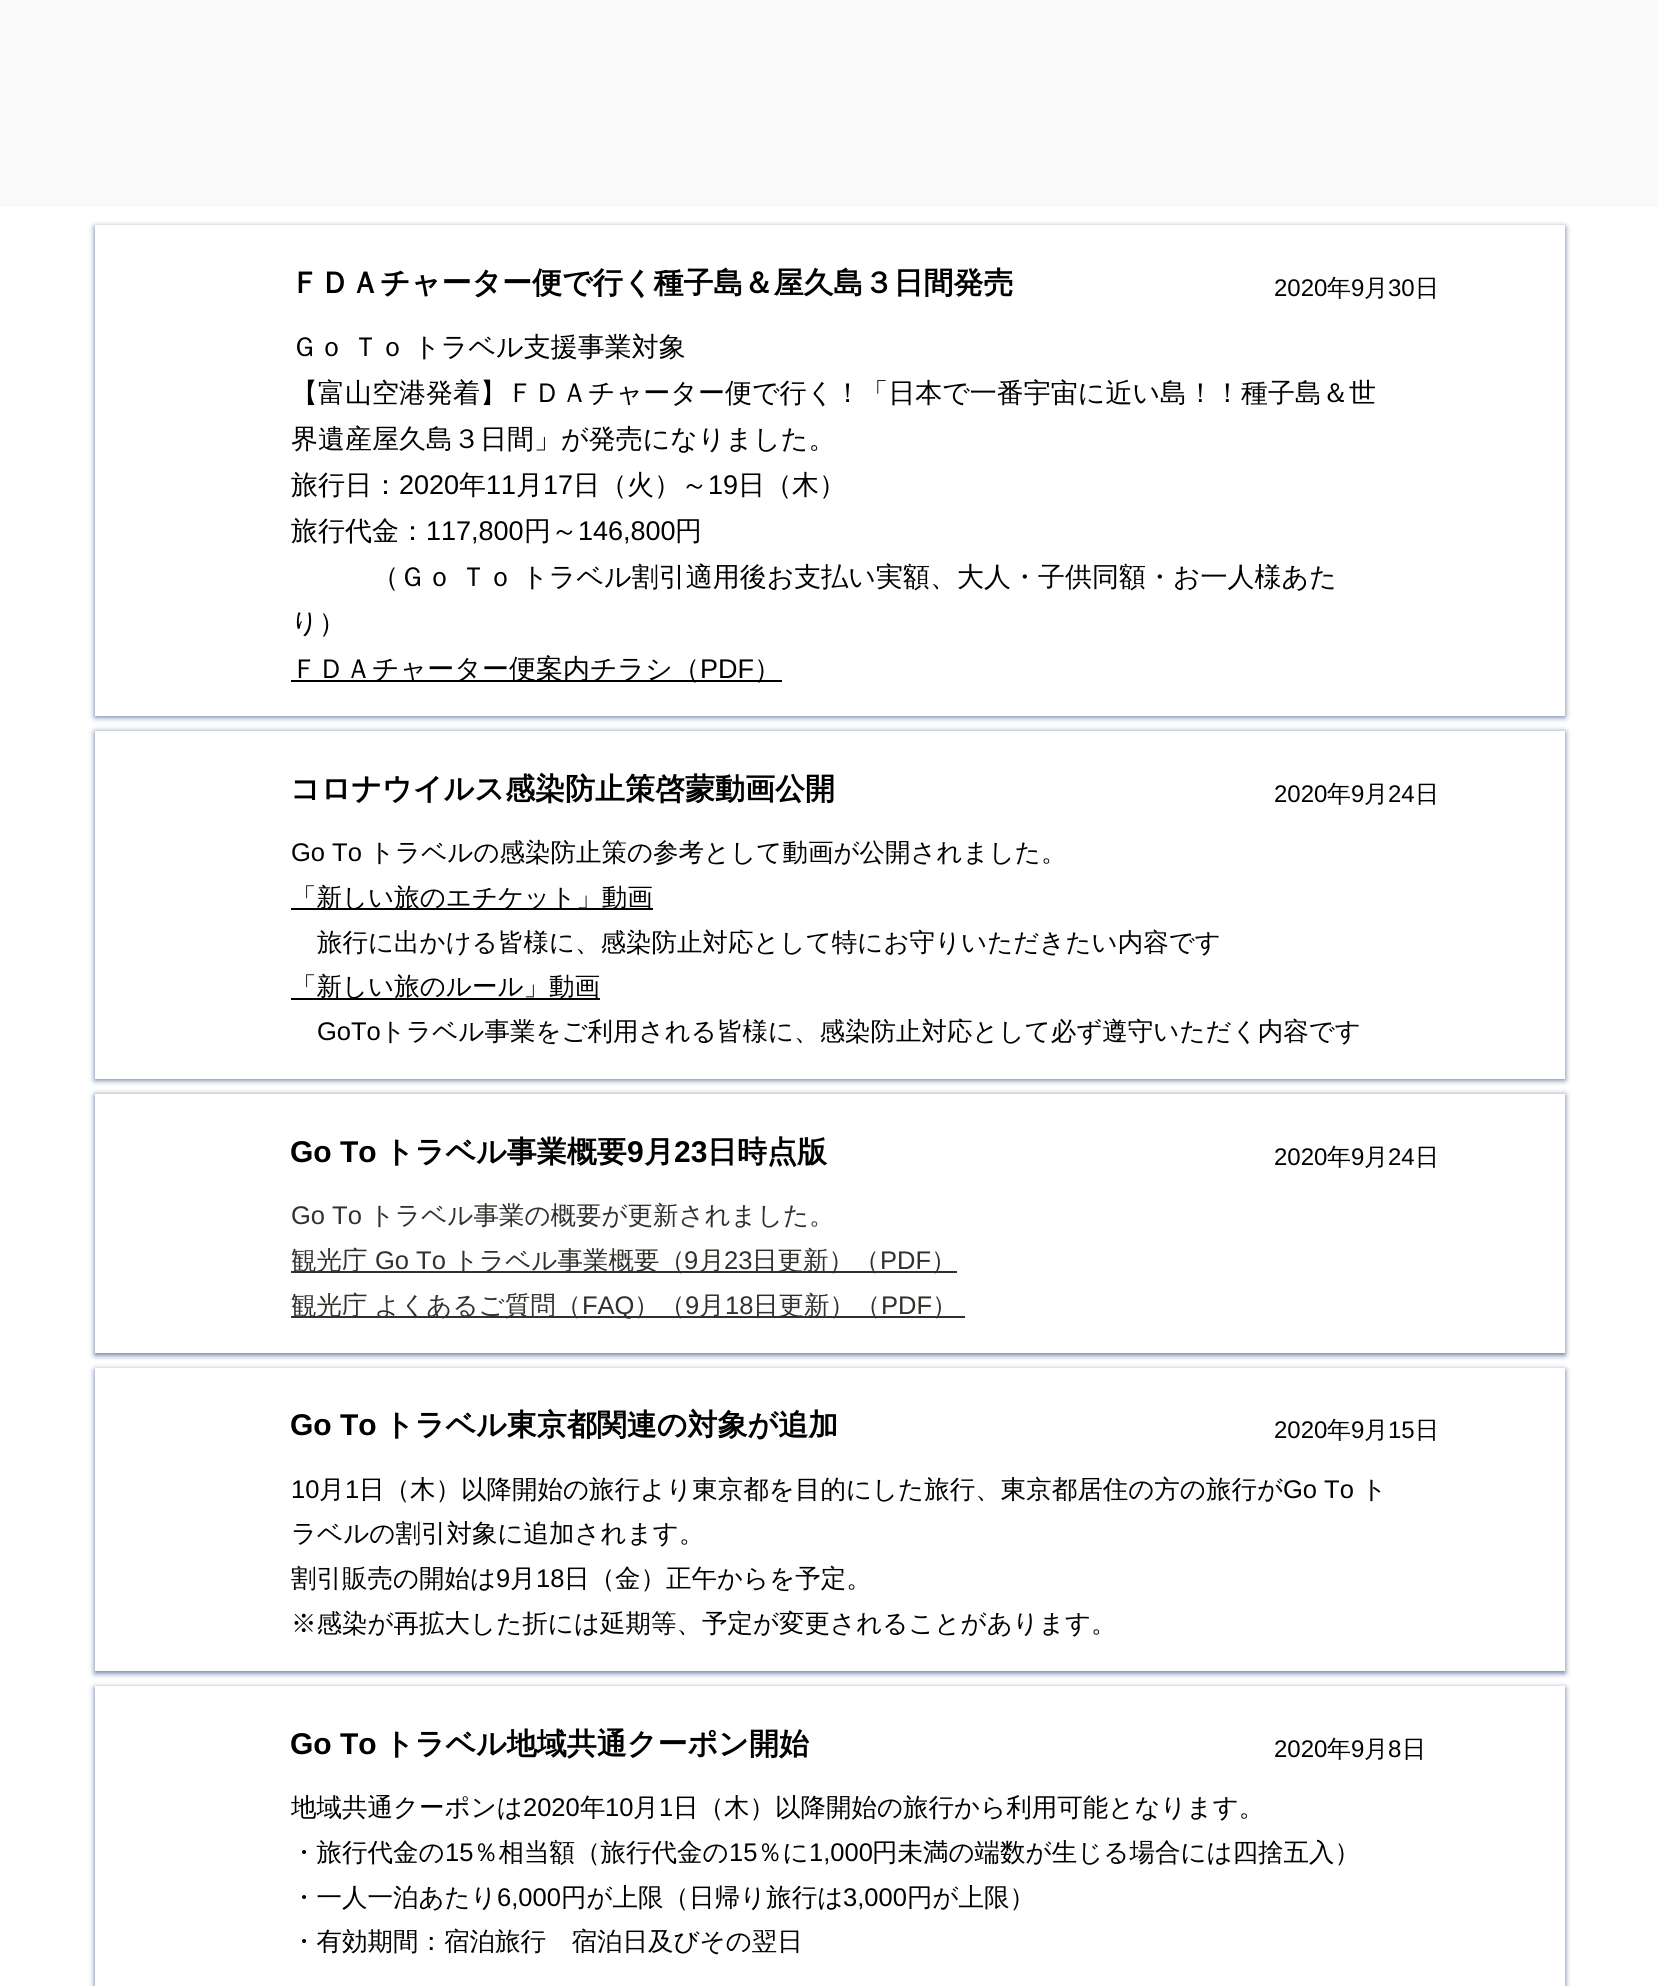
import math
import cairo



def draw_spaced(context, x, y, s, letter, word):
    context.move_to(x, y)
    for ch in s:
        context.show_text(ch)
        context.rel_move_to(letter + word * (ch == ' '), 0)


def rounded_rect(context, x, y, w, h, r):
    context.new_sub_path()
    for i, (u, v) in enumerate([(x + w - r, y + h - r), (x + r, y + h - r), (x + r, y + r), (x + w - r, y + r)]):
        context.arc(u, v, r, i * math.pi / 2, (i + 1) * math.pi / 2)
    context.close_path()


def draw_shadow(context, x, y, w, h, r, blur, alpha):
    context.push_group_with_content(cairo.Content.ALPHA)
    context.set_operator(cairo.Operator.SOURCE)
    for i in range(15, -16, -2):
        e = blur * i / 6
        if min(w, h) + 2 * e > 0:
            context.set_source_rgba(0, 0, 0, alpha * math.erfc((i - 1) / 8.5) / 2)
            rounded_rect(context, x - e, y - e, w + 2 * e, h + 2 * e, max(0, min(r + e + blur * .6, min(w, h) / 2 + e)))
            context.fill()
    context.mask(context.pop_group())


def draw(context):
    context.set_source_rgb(1, 1, 1)
    context.paint()
    context.set_source_rgb(250 / 255, 250 / 255, 250 / 255)
    context.rectangle(0, 0, 1658, 207)
    context.fill()
    context.set_source_rgb(92 / 255, 115 / 255, 157 / 255)
    draw_shadow(context, 95, 227, 1470, 490, 0, 3, 1)
    context.set_source_rgb(1, 1, 1)
    context.rectangle(95, 225, 1470, 491)
    context.fill()
    context.set_source_rgb(0, 0, 0)
    context.rectangle(291, 680, 491, 2)
    context.fill()
    context.set_source_rgb(92 / 255, 115 / 255, 157 / 255)
    draw_shadow(context, 95, 732, 1470, 348, 0, 3, 1)
    context.set_source_rgb(1, 1, 1)
    context.rectangle(95, 731, 1470, 348)
    context.fill()
    context.set_source_rgb(0, 0, 0)
    context.rectangle(291, 908, 362, 2)
    context.fill()
    context.rectangle(291, 998, 309, 2)
    context.fill()
    context.set_source_rgb(92 / 255, 115 / 255, 157 / 255)
    draw_shadow(context, 95, 1095, 1470, 260, 0, 3, 1)
    context.set_source_rgb(1, 1, 1)
    context.rectangle(95, 1094, 1470, 259)
    context.fill()
    context.set_source_rgb(49 / 255, 48 / 255, 44 / 255)
    context.rectangle(291, 1271, 666, 2)
    context.fill()
    context.rectangle(291, 1316, 674, 2)
    context.fill()
    context.set_source_rgb(92 / 255, 115 / 255, 157 / 255)
    draw_shadow(context, 95, 1370, 1470, 303, 0, 3, 1)
    context.set_source_rgb(1, 1, 1)
    context.rectangle(95, 1368, 1470, 303)
    context.fill()
    context.set_source_rgb(92 / 255, 115 / 255, 157 / 255)
    draw_shadow(context, 95, 1688, 1470, 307, 0, 3, 1)
    context.set_source_rgb(1, 1, 1)
    context.rectangle(95, 1686, 1470, 300)
    context.fill()
    context.select_font_face("WenQuanYi Zen Hei", cairo.FontSlant.NORMAL, cairo.FontWeight.BOLD)
    context.set_font_size(30)
    context.set_source_rgb(0, 0, 0)
    context.move_to(290, 293)
    context.show_text("ＦＤＡチャーター便で行く種子島＆屋久島３日間発売")
    context.select_font_face("Liberation Sans")
    context.set_font_size(24)
    context.move_to(1274, 296)
    context.show_text("2020")
    context.select_font_face("WenQuanYi Zen Hei Medium")
    context.move_to(1327, 296)
    context.show_text("年")
    context.select_font_face("Liberation Sans")
    context.move_to(1351, 296)
    context.show_text("9")
    context.select_font_face("WenQuanYi Zen Hei Medium")
    context.move_to(1364, 296)
    context.show_text("月")
    context.select_font_face("Liberation Sans")
    context.move_to(1388, 296)
    context.show_text("30")
    context.select_font_face("WenQuanYi Zen Hei Medium")
    context.move_to(1415, 296)
    context.show_text("日")
    context.set_font_size(27)
    draw_spaced(context, 291, 356, "Ｇｏ Ｔｏ トラベル支援事業対象", 0, -1)
    context.move_to(291, 402)
    context.show_text("【富山空港発着】ＦＤＡチャーター便で行く！「日本で一番宇宙に近い島！！種子島＆世")
    context.move_to(291, 448)
    context.show_text("界遺産屋久島３日間」が発売になりました。")
    context.move_to(291, 494)
    context.show_text("旅行日：")
    context.select_font_face("Liberation Sans")
    context.move_to(399, 494)
    context.show_text("2020")
    context.select_font_face("WenQuanYi Zen Hei Medium")
    context.move_to(459, 494)
    context.show_text("年")
    context.select_font_face("Liberation Sans")
    context.move_to(486, 494)
    context.show_text("11")
    context.select_font_face("WenQuanYi Zen Hei Medium")
    context.move_to(516, 494)
    context.show_text("月")
    context.select_font_face("Liberation Sans")
    context.move_to(543, 494)
    context.show_text("17")
    context.select_font_face("WenQuanYi Zen Hei Medium")
    context.move_to(573, 494)
    context.show_text("日（火）～")
    context.select_font_face("Liberation Sans")
    context.move_to(708, 494)
    context.show_text("19")
    context.select_font_face("WenQuanYi Zen Hei Medium")
    context.move_to(738, 494)
    context.show_text("日（木）")
    context.move_to(291, 540)
    context.show_text("旅行代金：")
    context.select_font_face("Liberation Sans")
    context.move_to(426, 540)
    context.show_text("117,800")
    context.select_font_face("WenQuanYi Zen Hei Medium")
    context.move_to(524, 540)
    context.show_text("円～")
    context.select_font_face("Liberation Sans")
    context.move_to(578, 540)
    context.show_text("146,800")
    context.select_font_face("WenQuanYi Zen Hei Medium")
    context.move_to(675, 540)
    context.show_text("円")
    draw_spaced(context, 372, 586, "（Ｇｏ Ｔｏ トラベル割引適用後お支払い実額、大人・子供同額・お一人様あた", 0, -1)
    context.move_to(291, 632)
    context.show_text("り）")
    context.move_to(291, 678)
    context.show_text("ＦＤＡチャーター便案内チラシ（")
    context.select_font_face("Liberation Sans")
    context.move_to(700, 678)
    context.show_text("PDF")
    context.select_font_face("WenQuanYi Zen Hei Medium")
    context.move_to(754, 678)
    context.show_text("）")
    context.select_font_face("WenQuanYi Zen Hei", cairo.FontSlant.NORMAL, cairo.FontWeight.BOLD)
    context.set_font_size(30)
    context.move_to(290, 799)
    context.show_text("コロナウイルス感染防止策啓蒙動画公開")
    context.select_font_face("Liberation Sans")
    context.set_font_size(24)
    context.move_to(1274, 802)
    context.show_text("2020")
    context.select_font_face("WenQuanYi Zen Hei Medium")
    context.move_to(1327, 802)
    context.show_text("年")
    context.select_font_face("Liberation Sans")
    context.move_to(1351, 802)
    context.show_text("9")
    context.select_font_face("WenQuanYi Zen Hei Medium")
    context.move_to(1364, 802)
    context.show_text("月")
    context.select_font_face("Liberation Sans")
    context.move_to(1388, 802)
    context.show_text("24")
    context.select_font_face("WenQuanYi Zen Hei Medium")
    context.move_to(1415, 802)
    context.show_text("日")
    context.select_font_face("Liberation Sans")
    context.set_font_size(25.5)
    context.move_to(291, 861)
    context.show_text("Go To")
    context.select_font_face("WenQuanYi Zen Hei Medium")
    context.move_to(369, 861)
    context.show_text("トラベルの感染防止策の参考として動画が公開されました。")
    context.move_to(291, 906)
    context.show_text("「新しい旅のエチケット」動画")
    context.move_to(317, 951)
    context.show_text("旅行に出かける皆様に、感染防止対応として特にお守りいただきたい内容です")
    context.move_to(291, 995)
    context.show_text("「新しい旅のルール」動画")
    context.select_font_face("Liberation Sans")
    context.move_to(317, 1040)
    context.show_text("GoTo")
    context.select_font_face("WenQuanYi Zen Hei Medium")
    context.move_to(380, 1040)
    context.show_text("トラベル事業をご利用される皆様に、感染防止対応として必ず遵守いただく内容です")
    context.select_font_face("Liberation Sans", cairo.FontSlant.NORMAL, cairo.FontWeight.BOLD)
    context.set_font_size(30)
    context.move_to(290, 1162)
    context.show_text("Go To")
    context.select_font_face("WenQuanYi Zen Hei", cairo.FontSlant.NORMAL, cairo.FontWeight.BOLD)
    context.move_to(384, 1162)
    context.show_text("トラベル事業概要")
    context.select_font_face("Liberation Sans", cairo.FontSlant.NORMAL, cairo.FontWeight.BOLD)
    context.move_to(627, 1162)
    context.show_text("9")
    context.select_font_face("WenQuanYi Zen Hei", cairo.FontSlant.NORMAL, cairo.FontWeight.BOLD)
    context.move_to(644, 1162)
    context.show_text("月")
    context.select_font_face("Liberation Sans", cairo.FontSlant.NORMAL, cairo.FontWeight.BOLD)
    context.move_to(674, 1162)
    context.show_text("23")
    context.select_font_face("WenQuanYi Zen Hei", cairo.FontSlant.NORMAL, cairo.FontWeight.BOLD)
    context.move_to(707, 1162)
    context.show_text("日時点版")
    context.select_font_face("Liberation Sans")
    context.set_font_size(24)
    context.move_to(1274, 1165)
    context.show_text("2020")
    context.select_font_face("WenQuanYi Zen Hei Medium")
    context.move_to(1327, 1165)
    context.show_text("年")
    context.select_font_face("Liberation Sans")
    context.move_to(1351, 1165)
    context.show_text("9")
    context.select_font_face("WenQuanYi Zen Hei Medium")
    context.move_to(1364, 1165)
    context.show_text("月")
    context.select_font_face("Liberation Sans")
    context.move_to(1388, 1165)
    context.show_text("24")
    context.select_font_face("WenQuanYi Zen Hei Medium")
    context.move_to(1415, 1165)
    context.show_text("日")
    context.select_font_face("Liberation Sans")
    context.set_font_size(25.5)
    context.set_source_rgb(49 / 255, 48 / 255, 44 / 255)
    context.move_to(291, 1224)
    context.show_text("Go To")
    context.select_font_face("WenQuanYi Zen Hei Medium")
    context.move_to(369, 1224)
    context.show_text("トラベル事業の概要が更新されました。")
    context.move_to(291, 1269)
    context.show_text("観光庁")
    context.select_font_face("Liberation Sans")
    context.move_to(375, 1269)
    context.show_text("Go To")
    context.select_font_face("WenQuanYi Zen Hei Medium")
    context.move_to(453, 1269)
    context.show_text("トラベル事業概要（")
    context.select_font_face("Liberation Sans")
    context.move_to(684, 1269)
    context.show_text("9")
    context.select_font_face("WenQuanYi Zen Hei Medium")
    context.move_to(699, 1269)
    context.show_text("月")
    context.select_font_face("Liberation Sans")
    context.move_to(724, 1269)
    context.show_text("23")
    context.select_font_face("WenQuanYi Zen Hei Medium")
    context.move_to(752, 1269)
    context.show_text("日更新）（")
    context.select_font_face("Liberation Sans")
    context.move_to(880, 1269)
    context.show_text("PDF")
    context.select_font_face("WenQuanYi Zen Hei Medium")
    context.move_to(931, 1269)
    context.show_text("）")
    draw_spaced(context, 291, 1314, "観光庁 よくあるご質問（", 0, -1)
    context.select_font_face("Liberation Sans")
    context.move_to(582, 1314)
    context.show_text("FAQ")
    context.select_font_face("WenQuanYi Zen Hei Medium")
    context.move_to(634, 1314)
    context.show_text("）（")
    context.select_font_face("Liberation Sans")
    context.move_to(685, 1314)
    context.show_text("9")
    context.select_font_face("WenQuanYi Zen Hei Medium")
    context.move_to(699, 1314)
    context.show_text("月")
    context.select_font_face("Liberation Sans")
    context.move_to(725, 1314)
    context.show_text("18")
    context.select_font_face("WenQuanYi Zen Hei Medium")
    context.move_to(753, 1314)
    context.show_text("日更新）（")
    context.select_font_face("Liberation Sans")
    context.move_to(881, 1314)
    context.show_text("PDF")
    context.select_font_face("WenQuanYi Zen Hei Medium")
    context.move_to(932, 1314)
    context.show_text("）")
    context.select_font_face("Liberation Sans", cairo.FontSlant.NORMAL, cairo.FontWeight.BOLD)
    context.set_font_size(30)
    context.set_source_rgb(0, 0, 0)
    context.move_to(290, 1435)
    context.show_text("Go To")
    context.select_font_face("WenQuanYi Zen Hei", cairo.FontSlant.NORMAL, cairo.FontWeight.BOLD)
    context.move_to(384, 1435)
    context.show_text("トラベル東京都関連の対象が追加")
    context.select_font_face("Liberation Sans")
    context.set_font_size(24)
    context.move_to(1274, 1438)
    context.show_text("2020")
    context.select_font_face("WenQuanYi Zen Hei Medium")
    context.move_to(1327, 1438)
    context.show_text("年")
    context.select_font_face("Liberation Sans")
    context.move_to(1351, 1438)
    context.show_text("9")
    context.select_font_face("WenQuanYi Zen Hei Medium")
    context.move_to(1364, 1438)
    context.show_text("月")
    context.select_font_face("Liberation Sans")
    context.move_to(1388, 1438)
    context.show_text("15")
    context.select_font_face("WenQuanYi Zen Hei Medium")
    context.move_to(1415, 1438)
    context.show_text("日")
    context.select_font_face("Liberation Sans")
    context.set_font_size(25.5)
    context.move_to(291, 1498)
    context.show_text("10")
    context.select_font_face("WenQuanYi Zen Hei Medium")
    context.move_to(319, 1498)
    context.show_text("月")
    context.select_font_face("Liberation Sans")
    context.move_to(345, 1498)
    context.show_text("1")
    context.select_font_face("WenQuanYi Zen Hei Medium")
    context.move_to(359, 1498)
    context.show_text("日（木）以降開始の旅行より東京都を目的にした旅行、東京都居住の方の旅行が")
    context.select_font_face("Liberation Sans")
    context.move_to(1283, 1498)
    context.show_text("Go To")
    context.select_font_face("WenQuanYi Zen Hei Medium")
    context.move_to(1361, 1498)
    context.show_text("ト")
    context.move_to(291, 1542)
    context.show_text("ラベルの割引対象に追加されます。")
    context.move_to(291, 1587)
    context.show_text("割引販売の開始は")
    context.select_font_face("Liberation Sans")
    context.move_to(496, 1587)
    context.show_text("9")
    context.select_font_face("WenQuanYi Zen Hei Medium")
    context.move_to(510, 1587)
    context.show_text("月")
    context.select_font_face("Liberation Sans")
    context.move_to(536, 1587)
    context.show_text("18")
    context.select_font_face("WenQuanYi Zen Hei Medium")
    context.move_to(564, 1587)
    context.show_text("日（金）正午からを予定。")
    context.move_to(291, 1632)
    context.show_text("※感染が再拡大した折には延期等、予定が変更されることがあります。")
    context.select_font_face("Liberation Sans", cairo.FontSlant.NORMAL, cairo.FontWeight.BOLD)
    context.set_font_size(30)
    context.move_to(290, 1754)
    context.show_text("Go To")
    context.select_font_face("WenQuanYi Zen Hei", cairo.FontSlant.NORMAL, cairo.FontWeight.BOLD)
    context.move_to(384, 1754)
    context.show_text("トラベル地域共通クーポン開始")
    context.select_font_face("Liberation Sans")
    context.set_font_size(24)
    context.move_to(1274, 1757)
    context.show_text("2020")
    context.select_font_face("WenQuanYi Zen Hei Medium")
    context.move_to(1327, 1757)
    context.show_text("年")
    context.select_font_face("Liberation Sans")
    context.move_to(1351, 1757)
    context.show_text("9")
    context.select_font_face("WenQuanYi Zen Hei Medium")
    context.move_to(1364, 1757)
    context.show_text("月")
    context.select_font_face("Liberation Sans")
    context.move_to(1388, 1757)
    context.show_text("8")
    context.select_font_face("WenQuanYi Zen Hei Medium")
    context.move_to(1402, 1757)
    context.show_text("日")
    context.set_font_size(25.5)
    context.move_to(291, 1816)
    context.show_text("地域共通クーポンは")
    context.select_font_face("Liberation Sans")
    context.move_to(523, 1816)
    context.show_text("2020")
    context.select_font_face("WenQuanYi Zen Hei Medium")
    context.move_to(580, 1816)
    context.show_text("年")
    context.select_font_face("Liberation Sans")
    context.move_to(605, 1816)
    context.show_text("10")
    context.select_font_face("WenQuanYi Zen Hei Medium")
    context.move_to(633, 1816)
    context.show_text("月")
    context.select_font_face("Liberation Sans")
    context.move_to(659, 1816)
    context.show_text("1")
    context.select_font_face("WenQuanYi Zen Hei Medium")
    context.move_to(673, 1816)
    context.show_text("日（木）以降開始の旅行から利用可能となります。")
    context.move_to(291, 1861)
    context.show_text("・旅行代金の")
    context.select_font_face("Liberation Sans")
    context.move_to(445, 1861)
    context.show_text("15")
    context.select_font_face("WenQuanYi Zen Hei Medium")
    context.move_to(473, 1861)
    context.show_text("％相当額（旅行代金の")
    context.select_font_face("Liberation Sans")
    context.move_to(729, 1861)
    context.show_text("15")
    context.select_font_face("WenQuanYi Zen Hei Medium")
    context.move_to(757, 1861)
    context.show_text("％に")
    context.select_font_face("Liberation Sans")
    context.move_to(809, 1861)
    context.show_text("1,000")
    context.select_font_face("WenQuanYi Zen Hei Medium")
    context.move_to(872, 1861)
    context.show_text("円未満の端数が生じる場合には四捨五入）")
    context.move_to(291, 1906)
    context.show_text("・一人一泊あたり")
    context.select_font_face("Liberation Sans")
    context.move_to(497, 1906)
    context.show_text("6,000")
    context.select_font_face("WenQuanYi Zen Hei Medium")
    context.move_to(561, 1906)
    context.show_text("円が上限（日帰り旅行は")
    context.select_font_face("Liberation Sans")
    context.move_to(843, 1906)
    context.show_text("3,000")
    context.select_font_face("WenQuanYi Zen Hei Medium")
    context.move_to(907, 1906)
    context.show_text("円が上限）")
    context.move_to(291, 1950)
    context.show_text("・有効期間：宿泊旅行　宿泊日及びその翌日")


surface = cairo.ImageSurface(cairo.Format.RGB24, 1658, 1986)
context = cairo.Context(surface)
options = cairo.FontOptions()
options.set_hint_metrics(cairo.HintMetrics.OFF)
options.set_hint_style(cairo.HintStyle.NONE)
context.set_font_options(options)
context.set_miter_limit(4)
draw(context)
surface.write_to_png("out.png")
